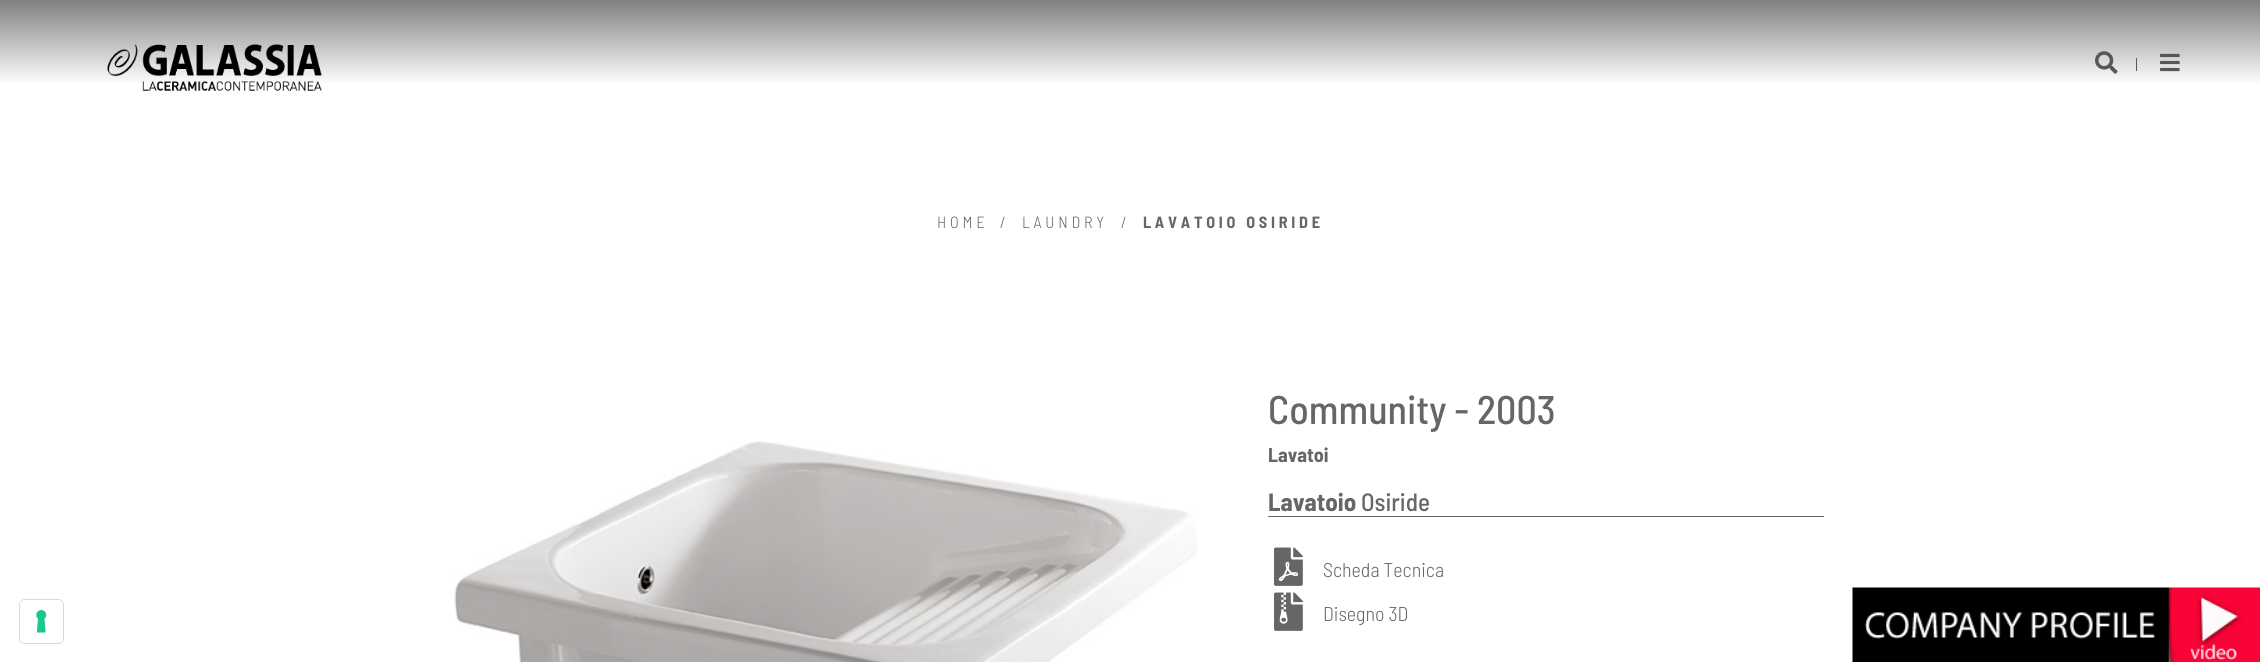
import math
import cairo



def draw_spaced(context, x, y, s, letter, word):
    context.move_to(x, y)
    for ch in s:
        context.show_text(ch)
        context.rel_move_to(letter + word * (ch == ' '), 0)


def rounded_rect(context, x, y, w, h, r):
    context.new_sub_path()
    for i, (u, v) in enumerate([(x + w - r, y + h - r), (x + r, y + h - r), (x + r, y + r), (x + w - r, y + r)]):
        context.arc(u, v, r, i * math.pi / 2, (i + 1) * math.pi / 2)
    context.close_path()


def draw_image(context, path, x, y, w, h):
    context.save()
    context.set_source_surface(cairo.ImageSurface.create_from_png(path), x, y)
    context.rectangle(x, y, w, h)
    context.fill()
    context.restore()


def draw(context):
    context.set_source_rgb(1, 1, 1)
    context.paint()
    rounded_rect(context, 19.5, 599.5, 44, 44, 5.5)
    context.set_source_rgb(217 / 255, 217 / 255, 217 / 255)
    context.set_line_width(1)
    context.stroke()
    context.set_source_rgb(1, 1, 1)
    rounded_rect(context, 20, 600, 43, 43, 5)
    context.fill()
    draw_image(context, "images/1.png", 36, 610, 11, 23)
    gradient = cairo.LinearGradient(1130, 85, 1130, 0)
    gradient.add_color_stop_rgba(0, 1, 1, 1, 1)
    gradient.add_color_stop_rgba(1, 128 / 255, 128 / 255, 128 / 255, 1)
    context.set_source(gradient)
    context.rectangle(0, 0, 2260, 83)
    context.fill()
    draw_image(context, "images/2.png", 107, 44, 215, 47)
    draw_image(context, "images/3.png", 2095, 51, 23, 23)
    context.set_source_rgb(87 / 255, 87 / 255, 86 / 255)
    context.rectangle(2136, 58, 1, 13)
    context.fill()
    draw_image(context, "images/4.png", 2160, 53, 20, 19)
    draw_image(context, "images/5.png", 454, 441, 744, 221)
    context.set_source_rgb(102 / 255, 102 / 255, 102 / 255)
    context.rectangle(1268, 516, 556, 1)
    context.fill()
    draw_image(context, "images/6.png", 1274, 547, 29, 39)
    draw_image(context, "images/7.png", 1274, 592, 29, 39)
    draw_image(context, "images/8.png", 1852, 587, 408, 75)
    context.select_font_face("Barlow Semi Condensed Light")
    context.set_font_size(16.25)
    draw_spaced(context, 937, 228, "HOME", 3.75, 0)
    draw_spaced(context, 1000, 228, "/", 3.75, 0)
    draw_spaced(context, 1022, 228, "LAUNDRY", 3.75, 0)
    draw_spaced(context, 1121, 228, "/", 3.75, 0)
    context.select_font_face("Barlow Semi Condensed", cairo.FontSlant.NORMAL, cairo.FontWeight.BOLD)
    draw_spaced(context, 1143, 228, "LAVATOIO OSIRIDE", 3.75, 0)
    context.select_font_face("Barlow Semi Condensed Medium")
    context.set_font_size(40)
    context.move_to(1268, 424)
    context.show_text("Community - 2003")
    context.select_font_face("Barlow Semi Condensed", cairo.FontSlant.NORMAL, cairo.FontWeight.BOLD)
    context.set_font_size(20)
    context.move_to(1268, 462)
    context.show_text("Lavatoi")
    context.set_font_size(25)
    context.move_to(1268, 511)
    context.show_text("Lavatoio")
    context.select_font_face("Barlow Semi Condensed Medium")
    context.move_to(1361, 511)
    context.show_text("Osiride")
    context.select_font_face("Barlow Semi Condensed Light")
    context.set_font_size(20)
    context.move_to(1323, 577)
    context.show_text("Scheda Tecnica")
    context.move_to(1323, 621)
    context.show_text("Disegno 3D")


surface = cairo.ImageSurface(cairo.Format.RGB24, 2260, 662)
context = cairo.Context(surface)
options = cairo.FontOptions()
options.set_hint_metrics(cairo.HintMetrics.OFF)
options.set_hint_style(cairo.HintStyle.NONE)
context.set_font_options(options)
context.set_miter_limit(4)
draw(context)
surface.write_to_png("out.png")
